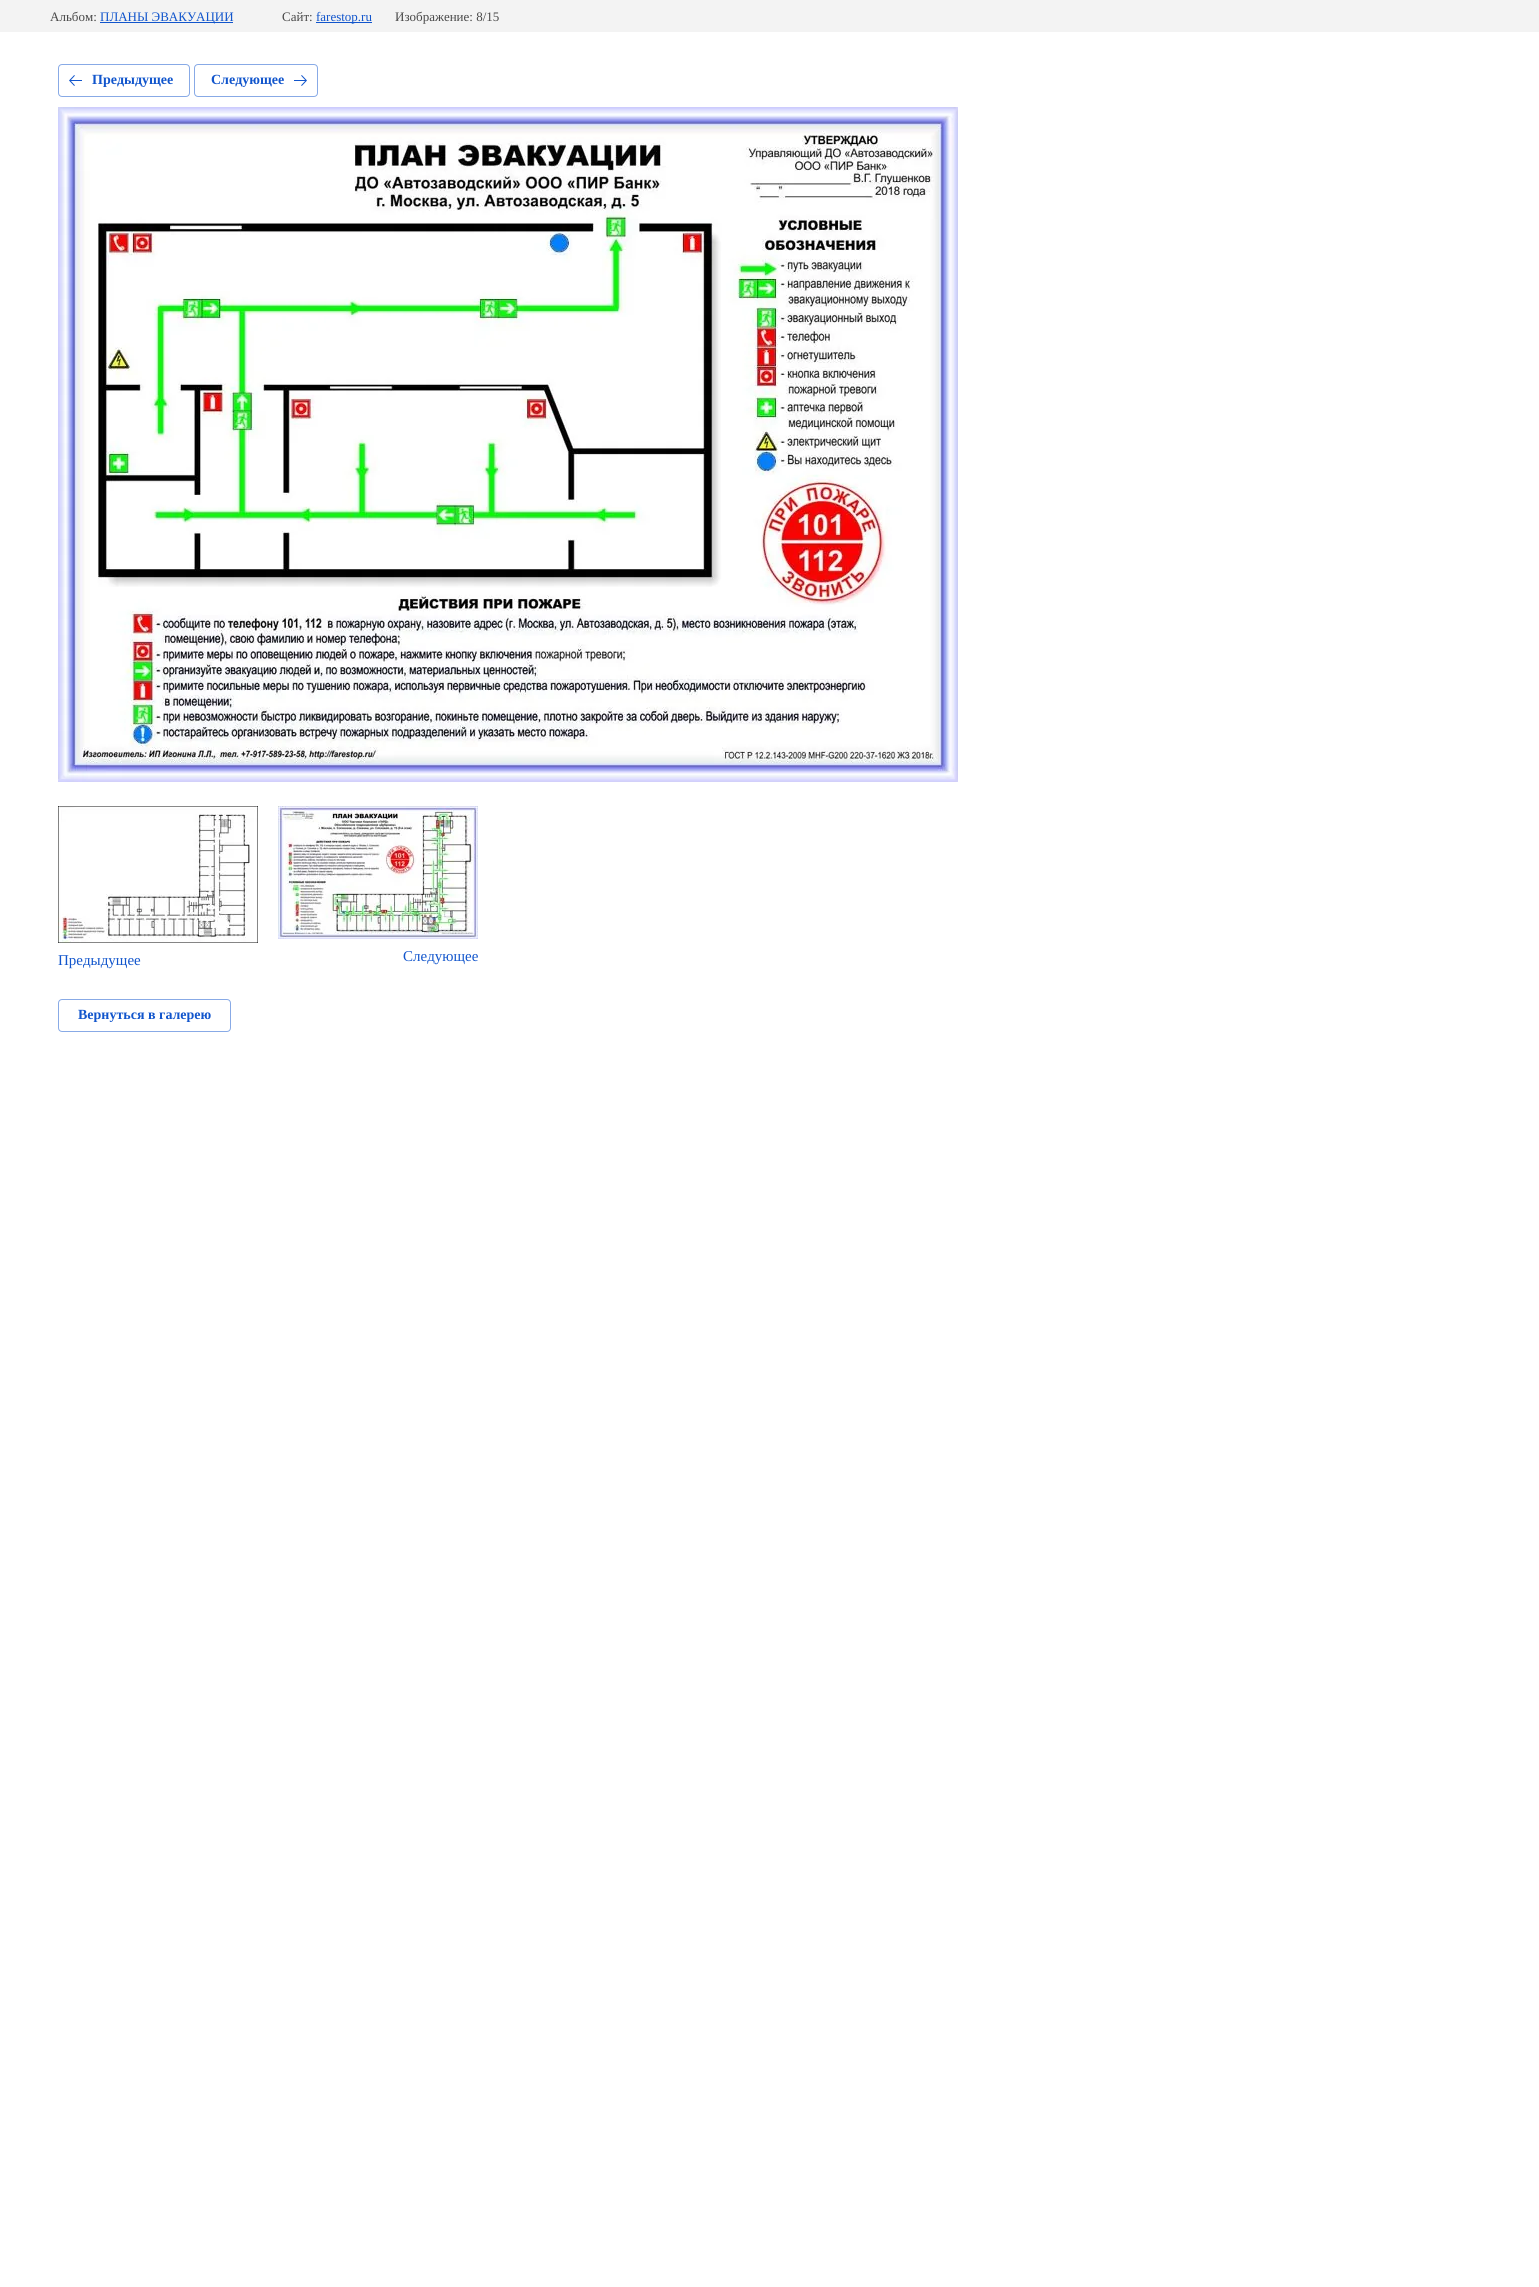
import math
import cairo



def rounded_rect(context, x, y, w, h, r):
    context.new_sub_path()
    for i, (u, v) in enumerate([(x + w - r, y + h - r), (x + r, y + h - r), (x + r, y + r), (x + w - r, y + r)]):
        context.arc(u, v, r, i * math.pi / 2, (i + 1) * math.pi / 2)
    context.close_path()


def draw_image(context, path, x, y, w, h):
    context.save()
    context.set_source_surface(cairo.ImageSurface.create_from_png(path), x, y)
    context.rectangle(x, y, w, h)
    context.fill()
    context.restore()


def draw(context):
    context.set_source_rgb(1, 1, 1)
    context.paint()
    context.set_source_rgb(243 / 255, 243 / 255, 243 / 255)
    context.rectangle(0, 0, 1539, 32)
    context.fill()
    context.set_source_rgb(17 / 255, 85 / 255, 204 / 255)
    context.rectangle(100, 22, 133, 1)
    context.fill()
    context.rectangle(316, 22, 56, 1)
    context.fill()
    rounded_rect(context, 58.5, 64.5, 131, 32, 3.5)
    context.set_source_rgb(136 / 255, 170 / 255, 230 / 255)
    context.set_line_width(1)
    context.stroke()
    draw_image(context, "images/1.png", 69, 75, 13, 11)
    rounded_rect(context, 194.5, 64.5, 123, 32, 3.5)
    context.stroke()
    draw_image(context, "images/2.png", 294, 75, 13, 11)
    draw_image(context, "images/3.png", 58, 107, 900, 675)
    draw_image(context, "images/4.png", 58, 806, 200, 137)
    draw_image(context, "images/5.png", 278, 806, 200, 133)
    rounded_rect(context, 58.5, 999.5, 172, 32, 3.5)
    context.stroke()
    context.select_font_face("Liberation Serif")
    context.set_font_size(13)
    context.set_source_rgb(72 / 255, 72 / 255, 72 / 255)
    context.move_to(50, 21)
    context.show_text("Альбом:")
    context.set_source_rgb(17 / 255, 85 / 255, 204 / 255)
    context.move_to(100, 21)
    context.show_text("ПЛАНЫ ЭВАКУАЦИИ")
    context.set_source_rgb(72 / 255, 72 / 255, 72 / 255)
    context.move_to(282, 21)
    context.show_text("Сайт:")
    context.set_source_rgb(17 / 255, 85 / 255, 204 / 255)
    context.move_to(316, 21)
    context.show_text("farestop.ru")
    context.set_source_rgb(72 / 255, 72 / 255, 72 / 255)
    context.move_to(395, 21)
    context.show_text("Изображение: 8/15")
    context.select_font_face("Liberation Serif", cairo.FontSlant.NORMAL, cairo.FontWeight.BOLD)
    context.set_font_size(14)
    context.set_source_rgb(17 / 255, 85 / 255, 204 / 255)
    context.move_to(92, 84)
    context.show_text("Предыдущее")
    context.move_to(211, 84)
    context.show_text("Следующее")
    context.select_font_face("Liberation Serif")
    context.set_font_size(15)
    context.move_to(58, 965)
    context.show_text("Предыдущее")
    context.move_to(403, 961)
    context.show_text("Следующее")
    context.select_font_face("Liberation Serif", cairo.FontSlant.NORMAL, cairo.FontWeight.BOLD)
    context.set_font_size(14)
    context.move_to(78, 1019)
    context.show_text("Вернуться в галерею")


surface = cairo.ImageSurface(cairo.Format.RGB24, 1539, 2287)
context = cairo.Context(surface)
options = cairo.FontOptions()
options.set_hint_metrics(cairo.HintMetrics.OFF)
options.set_hint_style(cairo.HintStyle.NONE)
context.set_font_options(options)
context.set_miter_limit(4)
draw(context)
surface.write_to_png("out.png")
